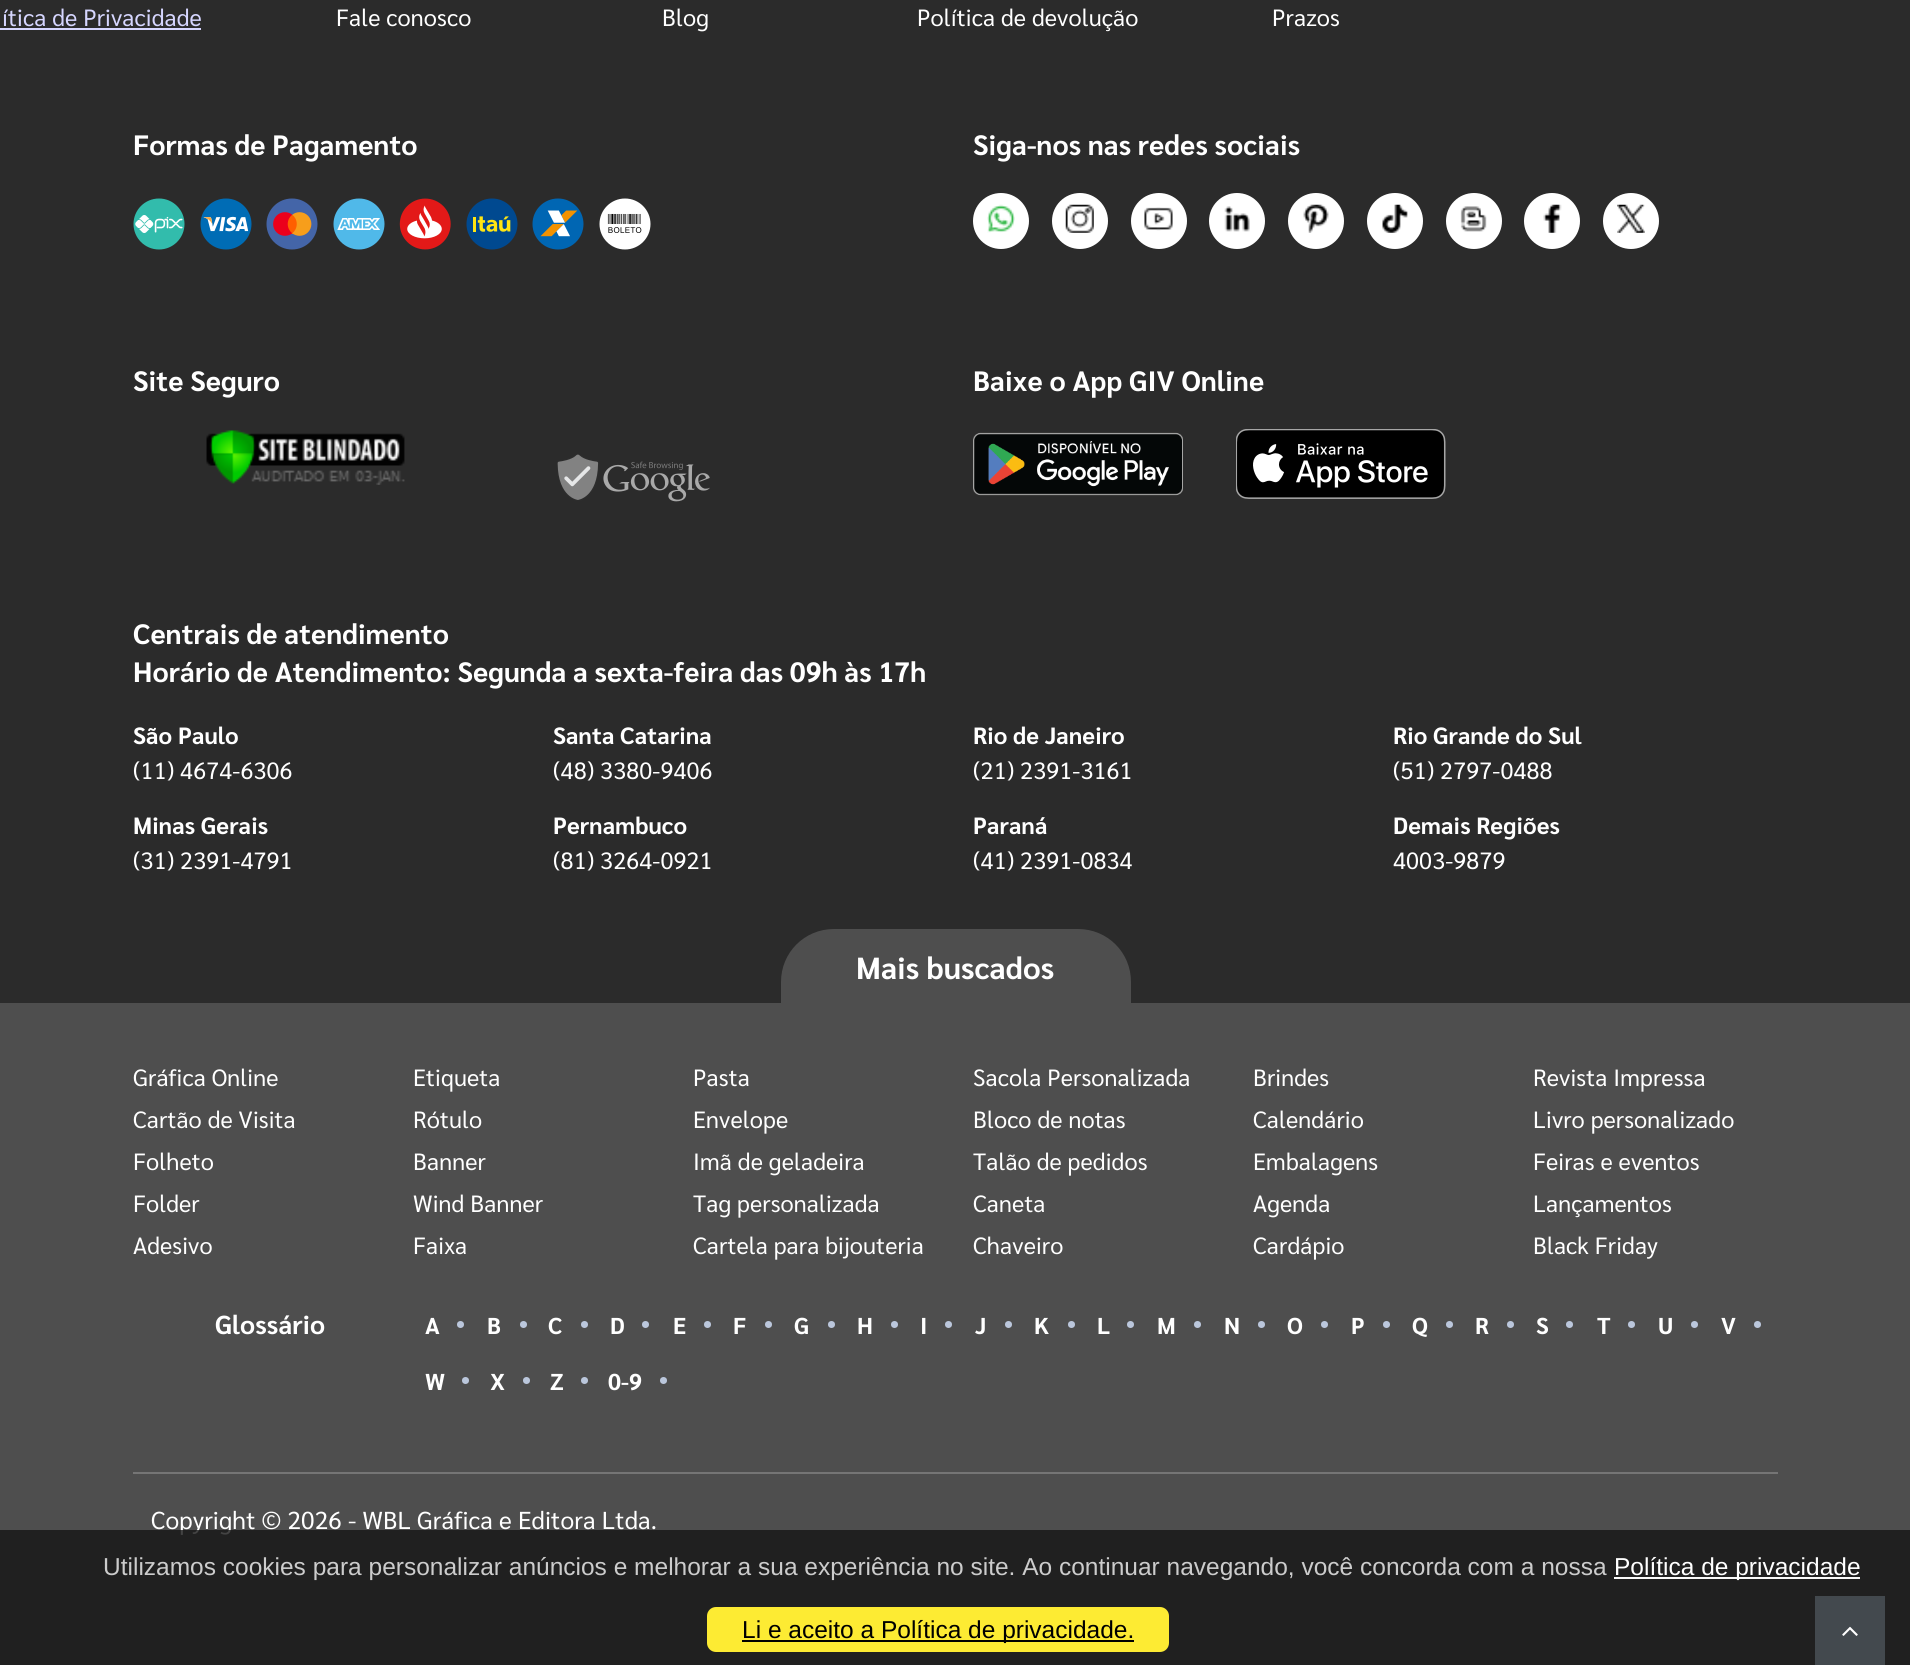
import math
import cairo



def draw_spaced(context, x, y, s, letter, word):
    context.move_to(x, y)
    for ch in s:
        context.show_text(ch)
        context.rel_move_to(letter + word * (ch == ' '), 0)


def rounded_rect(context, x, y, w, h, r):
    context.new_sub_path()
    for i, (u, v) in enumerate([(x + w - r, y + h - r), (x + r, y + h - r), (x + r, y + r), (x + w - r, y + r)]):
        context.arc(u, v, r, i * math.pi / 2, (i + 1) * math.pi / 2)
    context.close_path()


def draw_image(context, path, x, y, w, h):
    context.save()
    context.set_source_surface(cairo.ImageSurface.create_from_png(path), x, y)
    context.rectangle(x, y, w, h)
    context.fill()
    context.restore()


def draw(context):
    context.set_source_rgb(43 / 255, 43 / 255, 43 / 255)
    context.paint()
    context.set_source_rgb(214 / 255, 214 / 255, 1)
    context.rectangle(0, 28, 201, 2)
    context.fill()
    draw_image(context, "images/1.png", 133, 198, 52, 52)
    draw_image(context, "images/2.png", 200, 198, 52, 52)
    draw_image(context, "images/3.png", 266, 198, 52, 52)
    draw_image(context, "images/4.png", 333, 198, 52, 52)
    draw_image(context, "images/5.png", 399, 198, 52, 52)
    draw_image(context, "images/6.png", 466, 198, 52, 52)
    draw_image(context, "images/7.png", 532, 198, 52, 52)
    draw_image(context, "images/8.png", 599, 198, 52, 52)
    context.set_source_rgb(1, 1, 1)
    context.arc(1001, 221, 28, 0, 2 * math.pi)
    context.fill()
    draw_image(context, "images/9.png", 987, 204, 28, 29)
    context.arc(1080, 221, 28, 0, 2 * math.pi)
    context.fill()
    draw_image(context, "images/10.png", 1065, 204, 29, 29)
    context.arc(1159, 221, 28, 0, 2 * math.pi)
    context.fill()
    draw_image(context, "images/11.png", 1144, 207, 29, 24)
    context.arc(1237, 221, 28, 0, 2 * math.pi)
    context.fill()
    draw_image(context, "images/12.png", 1224, 206, 26, 26)
    context.arc(1316, 221, 28, 0, 2 * math.pi)
    context.fill()
    draw_image(context, "images/13.png", 1303, 204, 26, 29)
    context.arc(1395, 221, 28, 0, 2 * math.pi)
    context.fill()
    draw_image(context, "images/14.png", 1382, 204, 26, 29)
    context.arc(1474, 221, 28, 0, 2 * math.pi)
    context.fill()
    draw_image(context, "images/15.png", 1460, 206, 27, 26)
    context.arc(1552, 221, 28, 0, 2 * math.pi)
    context.fill()
    draw_image(context, "images/16.png", 1543, 204, 19, 29)
    context.arc(1631, 221, 28, 0, 2 * math.pi)
    context.fill()
    draw_image(context, "images/17.png", 1617, 204, 28, 29)
    draw_image(context, "images/18.png", 206, 430, 199, 55)
    draw_image(context, "images/19.png", 557, 454, 153, 48)
    draw_image(context, "images/20.png", 973, 432, 210, 64)
    draw_image(context, "images/21.png", 1236, 429, 210, 70)
    context.set_source_rgb(78 / 255, 78 / 255, 78 / 255)
    context.new_path()
    context.move_to(834, 929)
    context.line_to(1078, 929)
    context.curve_to(1107.5, 929, 1131, 952.5, 1131, 982)
    context.line_to(1131, 1003)
    context.line_to(781, 1003)
    context.line_to(781, 982)
    context.curve_to(781, 952.5, 804.5, 929, 834, 929)
    context.close_path()
    context.fill()
    context.rectangle(0, 1003, 1910, 662)
    context.fill()
    context.set_source_rgb(187 / 255, 199 / 255, 220 / 255)
    context.arc(460.5, 1324.5, 3.5, 0, 2 * math.pi)
    context.fill()
    context.arc(523.5, 1324.5, 3.5, 0, 2 * math.pi)
    context.fill()
    context.arc(584.5, 1324.5, 3.5, 0, 2 * math.pi)
    context.fill()
    context.arc(645.5, 1324.5, 3.5, 0, 2 * math.pi)
    context.fill()
    context.arc(707.5, 1324.5, 3.5, 0, 2 * math.pi)
    context.fill()
    context.arc(768.5, 1324.5, 3.5, 0, 2 * math.pi)
    context.fill()
    context.arc(831.5, 1324.5, 3.5, 0, 2 * math.pi)
    context.fill()
    context.arc(894.5, 1324.5, 3.5, 0, 2 * math.pi)
    context.fill()
    context.arc(948.5, 1324.5, 3.5, 0, 2 * math.pi)
    context.fill()
    context.arc(1008.5, 1324.5, 3.5, 0, 2 * math.pi)
    context.fill()
    context.arc(1071.5, 1324.5, 3.5, 0, 2 * math.pi)
    context.fill()
    context.arc(1130.5, 1324.5, 3.5, 0, 2 * math.pi)
    context.fill()
    context.arc(1197.5, 1324.5, 3.5, 0, 2 * math.pi)
    context.fill()
    context.arc(1261.5, 1324.5, 3.5, 0, 2 * math.pi)
    context.fill()
    context.arc(1324.5, 1324.5, 3.5, 0, 2 * math.pi)
    context.fill()
    context.arc(1386.5, 1324.5, 3.5, 0, 2 * math.pi)
    context.fill()
    context.arc(1449.5, 1324.5, 3.5, 0, 2 * math.pi)
    context.fill()
    context.arc(1510.5, 1324.5, 3.5, 0, 2 * math.pi)
    context.fill()
    context.arc(1569.5, 1324.5, 3.5, 0, 2 * math.pi)
    context.fill()
    context.arc(1631.5, 1324.5, 3.5, 0, 2 * math.pi)
    context.fill()
    context.arc(1694.5, 1324.5, 3.5, 0, 2 * math.pi)
    context.fill()
    context.arc(1757.5, 1324.5, 3.5, 0, 2 * math.pi)
    context.fill()
    context.arc(465.5, 1380.5, 3.5, 0, 2 * math.pi)
    context.fill()
    context.arc(526.5, 1380.5, 3.5, 0, 2 * math.pi)
    context.fill()
    context.arc(584.5, 1380.5, 3.5, 0, 2 * math.pi)
    context.fill()
    context.arc(663.5, 1380.5, 3.5, 0, 2 * math.pi)
    context.fill()
    context.set_source_rgb(117 / 255, 117 / 255, 117 / 255)
    context.rectangle(133, 1472, 1645, 2)
    context.fill()
    context.select_font_face("Sarabun")
    context.set_font_size(23.5)
    context.set_source_rgb(214 / 255, 214 / 255, 1)
    draw_spaced(context, 2, 26, "ítica de Privacidade", 0.12, 0)
    context.set_source_rgb(1, 1, 1)
    draw_spaced(context, 336, 26, "Fale conosco", 0.12, 0)
    draw_spaced(context, 662, 26, "Blog", 0.12, 0)
    draw_spaced(context, 917, 26, "Política de devolução", 0.12, 0)
    draw_spaced(context, 1272, 26, "Prazos", 0.12, 0)
    context.select_font_face("Sarabun", cairo.FontSlant.NORMAL, cairo.FontWeight.BOLD)
    context.set_font_size(28)
    draw_spaced(context, 133, 155, "Formas de Pagamento", 0.12, 0)
    draw_spaced(context, 973, 155, "Siga-nos nas redes sociais", 0.12, 0)
    draw_spaced(context, 133, 391, "Site Seguro", 0.12, 0)
    draw_spaced(context, 973, 391, "Baixe o App GIV Online", 0.12, 0)
    draw_spaced(context, 133, 644, "Centrais de atendimento", 0.12, 0)
    draw_spaced(context, 133, 682, "Horário de Atendimento: Segunda a sexta-feira das 09h às 17h", 0.12, 0)
    context.set_font_size(23.5)
    draw_spaced(context, 133, 744, "São Paulo", 0.12, 0)
    context.select_font_face("Sarabun")
    draw_spaced(context, 133, 779, "(11) 4674-6306", 0.12, 0)
    context.select_font_face("Sarabun", cairo.FontSlant.NORMAL, cairo.FontWeight.BOLD)
    draw_spaced(context, 133, 834, "Minas Gerais", 0.12, 0)
    context.select_font_face("Sarabun")
    draw_spaced(context, 133, 869, "(31) 2391-4791", 0.12, 0)
    context.select_font_face("Sarabun", cairo.FontSlant.NORMAL, cairo.FontWeight.BOLD)
    draw_spaced(context, 553, 744, "Santa Catarina", 0.12, 0)
    context.select_font_face("Sarabun")
    draw_spaced(context, 553, 779, "(48) 3380-9406", 0.12, 0)
    context.select_font_face("Sarabun", cairo.FontSlant.NORMAL, cairo.FontWeight.BOLD)
    draw_spaced(context, 553, 834, "Pernambuco", 0.12, 0)
    context.select_font_face("Sarabun")
    draw_spaced(context, 553, 869, "(81) 3264-0921", 0.12, 0)
    context.select_font_face("Sarabun", cairo.FontSlant.NORMAL, cairo.FontWeight.BOLD)
    draw_spaced(context, 973, 744, "Rio de Janeiro", 0.12, 0)
    context.select_font_face("Sarabun")
    draw_spaced(context, 973, 779, "(21) 2391-3161", 0.12, 0)
    context.select_font_face("Sarabun", cairo.FontSlant.NORMAL, cairo.FontWeight.BOLD)
    draw_spaced(context, 973, 834, "Paraná", 0.12, 0)
    context.select_font_face("Sarabun")
    draw_spaced(context, 973, 869, "(41) 2391-0834", 0.12, 0)
    context.select_font_face("Sarabun", cairo.FontSlant.NORMAL, cairo.FontWeight.BOLD)
    draw_spaced(context, 1393, 744, "Rio Grande do Sul", 0.12, 0)
    context.select_font_face("Sarabun")
    draw_spaced(context, 1393, 779, "(51) 2797-0488", 0.12, 0)
    context.select_font_face("Sarabun", cairo.FontSlant.NORMAL, cairo.FontWeight.BOLD)
    draw_spaced(context, 1393, 834, "Demais Regiões", 0.12, 0)
    context.select_font_face("Sarabun")
    draw_spaced(context, 1393, 869, "4003-9879", 0.12, 0)
    context.select_font_face("Sarabun", cairo.FontSlant.NORMAL, cairo.FontWeight.BOLD)
    context.set_font_size(30.5)
    draw_spaced(context, 856, 979, "Mais buscados", 0.12, 0)
    context.select_font_face("Sarabun")
    context.set_font_size(23.5)
    draw_spaced(context, 133, 1086, "Gráfica Online", 0.12, 0)
    draw_spaced(context, 133, 1128, "Cartão de Visita", 0.12, 0)
    draw_spaced(context, 133, 1170, "Folheto", 0.12, 0)
    draw_spaced(context, 133, 1212, "Folder", 0.12, 0)
    draw_spaced(context, 133, 1254, "Adesivo", 0.12, 0)
    draw_spaced(context, 413, 1086, "Etiqueta", 0.12, 0)
    draw_spaced(context, 413, 1128, "Rótulo", 0.12, 0)
    draw_spaced(context, 413, 1170, "Banner", 0.12, 0)
    draw_spaced(context, 413, 1212, "Wind Banner", 0.12, 0)
    draw_spaced(context, 413, 1254, "Faixa", 0.12, 0)
    draw_spaced(context, 693, 1086, "Pasta", 0.12, 0)
    draw_spaced(context, 693, 1128, "Envelope", 0.12, 0)
    draw_spaced(context, 693, 1170, "Imã de geladeira", 0.12, 0)
    draw_spaced(context, 693, 1212, "Tag personalizada", 0.12, 0)
    draw_spaced(context, 693, 1254, "Cartela para bijouteria", 0.12, 0)
    draw_spaced(context, 973, 1086, "Sacola Personalizada", 0.12, 0)
    draw_spaced(context, 973, 1128, "Bloco de notas", 0.12, 0)
    draw_spaced(context, 973, 1170, "Talão de pedidos", 0.12, 0)
    draw_spaced(context, 973, 1212, "Caneta", 0.12, 0)
    draw_spaced(context, 973, 1254, "Chaveiro", 0.12, 0)
    draw_spaced(context, 1253, 1086, "Brindes", 0.12, 0)
    draw_spaced(context, 1253, 1128, "Calendário", 0.12, 0)
    draw_spaced(context, 1253, 1170, "Embalagens", 0.12, 0)
    draw_spaced(context, 1253, 1212, "Agenda", 0.12, 0)
    draw_spaced(context, 1253, 1254, "Cardápio", 0.12, 0)
    draw_spaced(context, 1533, 1086, "Revista Impressa", 0.12, 0)
    draw_spaced(context, 1533, 1128, "Livro personalizado", 0.12, 0)
    draw_spaced(context, 1533, 1170, "Feiras e eventos", 0.12, 0)
    draw_spaced(context, 1533, 1212, "Lançamentos", 0.12, 0)
    draw_spaced(context, 1533, 1254, "Black Friday", 0.12, 0)
    context.select_font_face("Sarabun", cairo.FontSlant.NORMAL, cairo.FontWeight.BOLD)
    context.set_font_size(26)
    draw_spaced(context, 215, 1334, "Glossário", 0.12, 0)
    context.set_font_size(23)
    draw_spaced(context, 425, 1334, "A", 0.12, 0)
    draw_spaced(context, 487, 1334, "B", 0.12, 0)
    draw_spaced(context, 548, 1334, "C", 0.12, 0)
    draw_spaced(context, 610, 1334, "D", 0.12, 0)
    draw_spaced(context, 673, 1334, "E", 0.12, 0)
    draw_spaced(context, 733, 1334, "F", 0.12, 0)
    draw_spaced(context, 794, 1334, "G", 0.12, 0)
    draw_spaced(context, 857, 1334, "H", 0.12, 0)
    draw_spaced(context, 920, 1334, "I", 0.12, 0)
    draw_spaced(context, 975, 1334, "J", 0.12, 0)
    draw_spaced(context, 1034, 1334, "K", 0.12, 0)
    draw_spaced(context, 1097, 1334, "L", 0.12, 0)
    draw_spaced(context, 1157, 1334, "M", 0.12, 0)
    draw_spaced(context, 1224, 1334, "N", 0.12, 0)
    draw_spaced(context, 1287, 1334, "O", 0.12, 0)
    draw_spaced(context, 1351, 1334, "P", 0.12, 0)
    draw_spaced(context, 1412, 1334, "Q", 0.12, 0)
    draw_spaced(context, 1475, 1334, "R", 0.12, 0)
    draw_spaced(context, 1536, 1334, "S", 0.12, 0)
    draw_spaced(context, 1597, 1334, "T", 0.12, 0)
    draw_spaced(context, 1658, 1334, "U", 0.12, 0)
    draw_spaced(context, 1721, 1334, "V", 0.12, 0)
    draw_spaced(context, 425, 1390, "W", 0.12, 0)
    draw_spaced(context, 490, 1390, "X", 0.12, 0)
    draw_spaced(context, 550, 1390, "Z", 0.12, 0)
    draw_spaced(context, 608, 1390, "0-9", 0.12, 0)
    context.select_font_face("Sarabun")
    context.set_font_size(24.5)
    draw_spaced(context, 151, 1529, "Copyright © 2026 - WBL Gráfica e Editora Ltda.", 0.12, 0)
    context.set_source_rgba(20 / 255, 20 / 255, 20 / 255, 0.8)
    context.rectangle(0, 1530, 1910, 135)
    context.fill()
    context.select_font_face("Liberation Sans")
    context.set_source_rgb(204 / 255, 204 / 255, 204 / 255)
    context.move_to(103, 1575)
    context.show_text("Utilizamos cookies para personalizar anúncios e melhorar a sua experiência no site. Ao continuar navegando, você concorda com a nossa")
    context.set_source_rgb(250 / 255, 250 / 255, 250 / 255)
    context.rectangle(1614, 1577, 246, 2)
    context.fill()
    context.set_source_rgb(1, 1, 1)
    context.move_to(1614, 1575)
    context.show_text("Política de privacidade")
    context.set_source_rgb(253 / 255, 235 / 255, 51 / 255)
    rounded_rect(context, 707, 1607, 462, 45, 9)
    context.fill()
    context.set_source_rgb(0, 0, 0)
    context.rectangle(742, 1640, 392, 2)
    context.fill()
    context.move_to(742, 1638)
    context.show_text("Li e aceito a Política de privacidade.")
    context.set_source_rgb(67 / 255, 73 / 255, 78 / 255)
    context.rectangle(1815, 1596, 70, 69)
    context.fill()
    draw_image(context, "images/22.png", 1842, 1626, 16, 10)


surface = cairo.ImageSurface(cairo.Format.RGB24, 1910, 1665)
context = cairo.Context(surface)
options = cairo.FontOptions()
options.set_hint_metrics(cairo.HintMetrics.OFF)
options.set_hint_style(cairo.HintStyle.NONE)
context.set_font_options(options)
context.set_miter_limit(4)
draw(context)
surface.write_to_png("out.png")
